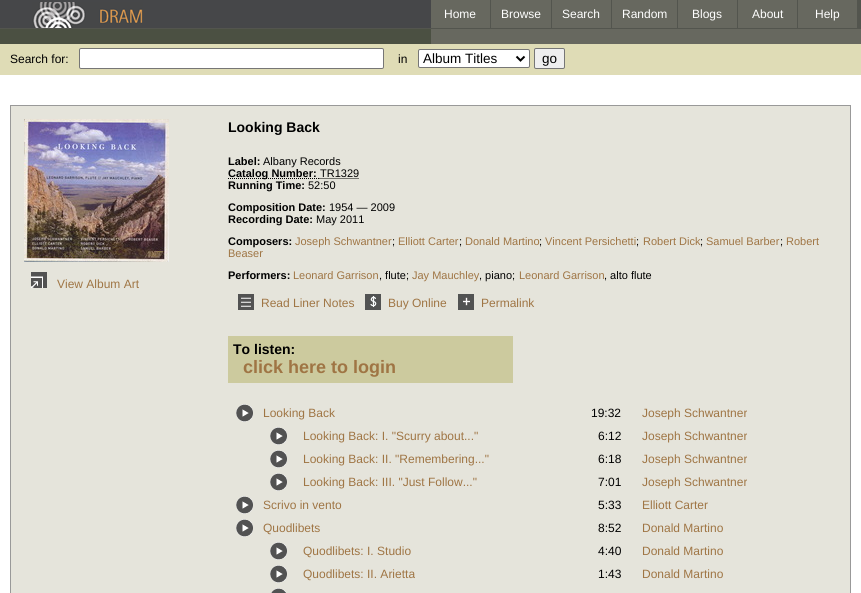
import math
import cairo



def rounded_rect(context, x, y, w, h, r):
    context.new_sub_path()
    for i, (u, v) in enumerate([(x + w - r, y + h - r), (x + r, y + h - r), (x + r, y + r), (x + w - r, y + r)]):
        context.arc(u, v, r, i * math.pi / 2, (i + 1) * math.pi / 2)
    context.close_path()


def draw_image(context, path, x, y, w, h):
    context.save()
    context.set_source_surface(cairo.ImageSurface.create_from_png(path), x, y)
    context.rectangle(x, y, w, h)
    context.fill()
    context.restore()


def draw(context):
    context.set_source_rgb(70 / 255, 71 / 255, 73 / 255)
    context.paint()
    draw_image(context, "images/1.png", 32, 2, 111, 26)
    context.set_source_rgb(83 / 255, 85 / 255, 78 / 255)
    context.rectangle(490, 0, 371, 28)
    context.fill()
    context.set_source_rgb(103 / 255, 104 / 255, 95 / 255)
    context.rectangle(431, 0, 59, 28)
    context.fill()
    context.rectangle(491, 0, 60, 28)
    context.fill()
    context.rectangle(552, 0, 59, 28)
    context.fill()
    context.rectangle(612, 0, 65, 28)
    context.fill()
    context.rectangle(678, 0, 59, 28)
    context.fill()
    context.rectangle(738, 0, 59, 28)
    context.fill()
    context.rectangle(798, 0, 59, 28)
    context.fill()
    context.rectangle(431, 29, 430, 15)
    context.fill()
    context.set_source_rgb(83 / 255, 85 / 255, 78 / 255)
    context.rectangle(0, 28, 861, 1)
    context.fill()
    context.set_source_rgb(75 / 255, 80 / 255, 66 / 255)
    context.rectangle(0, 29, 431, 15)
    context.fill()
    context.set_source_rgb(223 / 255, 220 / 255, 182 / 255)
    context.rectangle(0, 44, 861, 31)
    context.fill()
    context.set_source_rgb(1, 1, 1)
    rounded_rect(context, 79.5, 48.5, 304, 20, 1.5)
    context.fill_preserve()
    context.set_source_rgb(118 / 255, 118 / 255, 118 / 255)
    context.set_line_width(1)
    context.stroke()
    context.set_source_rgb(1, 1, 1)
    rounded_rect(context, 418.5, 49.5, 111, 18, 1.5)
    context.fill_preserve()
    context.set_source_rgb(118 / 255, 118 / 255, 118 / 255)
    context.stroke()
    context.new_path()
    context.move_to(516.5, 56.5)
    context.line_to(520.5, 60.5)
    context.line_to(524.5, 56.5)
    context.set_source_rgb(0, 0, 0)
    context.set_line_width(2)
    context.stroke()
    context.set_source_rgb(239 / 255, 239 / 255, 239 / 255)
    rounded_rect(context, 534.5, 48.5, 30, 20, 1.5)
    context.fill_preserve()
    context.set_source_rgb(118 / 255, 118 / 255, 118 / 255)
    context.set_line_width(1)
    context.stroke()
    context.set_source_rgb(1, 1, 1)
    context.rectangle(0, 75, 861, 518)
    context.fill()
    context.set_source_rgb(229 / 255, 228 / 255, 219 / 255)
    context.rectangle(10.5, 105.5, 840, 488)
    context.fill_preserve()
    context.set_source_rgb(153 / 255, 153 / 255, 153 / 255)
    context.stroke()
    draw_image(context, "images/2.png", 24, 119, 145, 143)
    draw_image(context, "images/3.png", 31, 272, 16, 16)
    context.new_path()
    context.move_to(228, 178.5)
    context.line_to(319.5, 178.5)
    context.set_source_rgb(0, 0, 0)
    context.set_dash([1, 1])
    context.stroke()
    context.new_path()
    context.move_to(319.5, 178.5)
    context.line_to(359, 178.5)
    context.stroke()
    draw_image(context, "images/4.png", 238, 294, 16, 16)
    draw_image(context, "images/5.png", 365, 294, 16, 16)
    draw_image(context, "images/6.png", 458, 294, 16, 16)
    context.set_source_rgb(204 / 255, 202 / 255, 158 / 255)
    context.rectangle(228, 336, 285, 47)
    context.fill()
    draw_image(context, "images/7.png", 236, 404, 17, 18)
    draw_image(context, "images/7.png", 270, 427, 17, 18)
    draw_image(context, "images/7.png", 270, 450, 17, 18)
    draw_image(context, "images/7.png", 270, 473, 17, 18)
    draw_image(context, "images/7.png", 236, 496, 17, 18)
    draw_image(context, "images/7.png", 236, 519, 17, 18)
    draw_image(context, "images/7.png", 270, 542, 17, 18)
    draw_image(context, "images/7.png", 270, 565, 17, 18)
    draw_image(context, "images/8.png", 271, 588, 15, 5)
    context.select_font_face("Liberation Sans")
    context.set_font_size(12)
    context.set_source_rgb(1, 1, 1)
    context.move_to(444, 18)
    context.show_text("Home")
    context.move_to(501, 18)
    context.show_text("Browse")
    context.move_to(562, 18)
    context.show_text("Search")
    context.move_to(622, 18)
    context.show_text("Random")
    context.move_to(692, 18)
    context.show_text("Blogs")
    context.move_to(752, 18)
    context.show_text("About")
    context.move_to(815, 18)
    context.show_text("Help")
    context.set_source_rgb(0, 0, 0)
    context.move_to(10, 63)
    context.show_text("Search for:")
    context.move_to(398, 63)
    context.show_text("in")
    context.set_font_size(13.5)
    context.move_to(423, 63)
    context.show_text("Album Titles")
    context.move_to(542, 63)
    context.show_text("go")
    context.set_font_size(12)
    context.set_source_rgb(159 / 255, 117 / 255, 68 / 255)
    context.move_to(57, 288)
    context.show_text("View Album Art")
    context.select_font_face("Liberation Sans", cairo.FontSlant.NORMAL, cairo.FontWeight.BOLD)
    context.set_font_size(14)
    context.set_source_rgb(0, 0, 0)
    context.move_to(228, 132)
    context.show_text("Looking Back")
    context.set_font_size(11)
    context.move_to(228, 165)
    context.show_text("Label:")
    context.select_font_face("Liberation Sans")
    context.move_to(263, 165)
    context.show_text("Albany Records")
    context.select_font_face("Liberation Sans", cairo.FontSlant.NORMAL, cairo.FontWeight.BOLD)
    context.move_to(228, 177)
    context.show_text("Catalog Number:")
    context.select_font_face("Liberation Sans")
    context.move_to(320, 177)
    context.show_text("TR1329")
    context.select_font_face("Liberation Sans", cairo.FontSlant.NORMAL, cairo.FontWeight.BOLD)
    context.move_to(228, 189)
    context.show_text("Running Time:")
    context.select_font_face("Liberation Sans")
    context.move_to(308, 189)
    context.show_text("52:50")
    context.select_font_face("Liberation Sans", cairo.FontSlant.NORMAL, cairo.FontWeight.BOLD)
    context.move_to(228, 211)
    context.show_text("Composition Date:")
    context.select_font_face("Liberation Sans")
    context.move_to(329, 211)
    context.show_text("1954 — 2009")
    context.select_font_face("Liberation Sans", cairo.FontSlant.NORMAL, cairo.FontWeight.BOLD)
    context.move_to(228, 223)
    context.show_text("Recording Date:")
    context.select_font_face("Liberation Sans")
    context.move_to(316, 223)
    context.show_text("May 2011")
    context.select_font_face("Liberation Sans", cairo.FontSlant.NORMAL, cairo.FontWeight.BOLD)
    context.move_to(228, 245)
    context.show_text("Composers:")
    context.select_font_face("Liberation Sans")
    context.set_source_rgb(159 / 255, 117 / 255, 68 / 255)
    context.move_to(295, 245)
    context.show_text("Joseph Schwantner")
    context.set_source_rgb(0, 0, 0)
    context.move_to(392, 245)
    context.show_text(";")
    context.set_source_rgb(159 / 255, 117 / 255, 68 / 255)
    context.move_to(398, 245)
    context.show_text("Elliott Carter")
    context.set_source_rgb(0, 0, 0)
    context.move_to(459, 245)
    context.show_text(";")
    context.set_source_rgb(159 / 255, 117 / 255, 68 / 255)
    context.move_to(465, 245)
    context.show_text("Donald Martino")
    context.set_source_rgb(0, 0, 0)
    context.move_to(539, 245)
    context.show_text(";")
    context.set_source_rgb(159 / 255, 117 / 255, 68 / 255)
    context.move_to(545, 245)
    context.show_text("Vincent Persichetti")
    context.set_source_rgb(0, 0, 0)
    context.move_to(636, 245)
    context.show_text(";")
    context.set_source_rgb(159 / 255, 117 / 255, 68 / 255)
    context.move_to(643, 245)
    context.show_text("Robert Dick")
    context.set_source_rgb(0, 0, 0)
    context.move_to(700, 245)
    context.show_text(";")
    context.set_source_rgb(159 / 255, 117 / 255, 68 / 255)
    context.move_to(706, 245)
    context.show_text("Samuel Barber")
    context.set_source_rgb(0, 0, 0)
    context.move_to(780, 245)
    context.show_text(";")
    context.set_source_rgb(159 / 255, 117 / 255, 68 / 255)
    context.move_to(786, 245)
    context.show_text("Robert")
    context.move_to(228, 257)
    context.show_text("Beaser")
    context.select_font_face("Liberation Sans", cairo.FontSlant.NORMAL, cairo.FontWeight.BOLD)
    context.set_source_rgb(0, 0, 0)
    context.move_to(228, 279)
    context.show_text("Performers:")
    context.select_font_face("Liberation Sans")
    context.set_source_rgb(159 / 255, 117 / 255, 68 / 255)
    context.move_to(293, 279)
    context.show_text("Leonard Garrison")
    context.set_source_rgb(0, 0, 0)
    context.move_to(379, 279)
    context.show_text(", flute;")
    context.set_source_rgb(159 / 255, 117 / 255, 68 / 255)
    context.move_to(412, 279)
    context.show_text("Jay Mauchley")
    context.set_source_rgb(0, 0, 0)
    context.move_to(479, 279)
    context.show_text(", piano;")
    context.set_source_rgb(159 / 255, 117 / 255, 68 / 255)
    context.move_to(519, 279)
    context.show_text("Leonard Garrison")
    context.set_source_rgb(0, 0, 0)
    context.move_to(604, 279)
    context.show_text(", alto flute")
    context.set_font_size(12)
    context.set_source_rgb(159 / 255, 117 / 255, 68 / 255)
    context.move_to(261, 307)
    context.show_text("Read Liner Notes")
    context.move_to(388, 307)
    context.show_text("Buy Online")
    context.move_to(481, 307)
    context.show_text("Permalink")
    context.select_font_face("Liberation Sans", cairo.FontSlant.NORMAL, cairo.FontWeight.BOLD)
    context.set_font_size(14)
    context.set_source_rgb(0, 0, 0)
    context.move_to(233, 354)
    context.show_text("To listen:")
    context.set_font_size(18)
    context.set_source_rgb(159 / 255, 117 / 255, 68 / 255)
    context.move_to(243, 373)
    context.show_text("click here to login")
    context.select_font_face("Liberation Sans")
    context.set_font_size(12)
    context.move_to(263, 417)
    context.show_text("Looking Back")
    context.set_source_rgb(0, 0, 0)
    context.move_to(591, 417)
    context.show_text("19:32")
    context.set_source_rgb(159 / 255, 117 / 255, 68 / 255)
    context.move_to(642, 417)
    context.show_text("Joseph Schwantner")
    context.move_to(303, 440)
    context.show_text("Looking Back: I. \"Scurry about...\"")
    context.set_source_rgb(0, 0, 0)
    context.move_to(598, 440)
    context.show_text("6:12")
    context.set_source_rgb(159 / 255, 117 / 255, 68 / 255)
    context.move_to(642, 440)
    context.show_text("Joseph Schwantner")
    context.move_to(303, 463)
    context.show_text("Looking Back: II. \"Remembering...\"")
    context.set_source_rgb(0, 0, 0)
    context.move_to(598, 463)
    context.show_text("6:18")
    context.set_source_rgb(159 / 255, 117 / 255, 68 / 255)
    context.move_to(642, 463)
    context.show_text("Joseph Schwantner")
    context.move_to(303, 486)
    context.show_text("Looking Back: III. \"Just Follow...\"")
    context.set_source_rgb(0, 0, 0)
    context.move_to(598, 486)
    context.show_text("7:01")
    context.set_source_rgb(159 / 255, 117 / 255, 68 / 255)
    context.move_to(642, 486)
    context.show_text("Joseph Schwantner")
    context.move_to(263, 509)
    context.show_text("Scrivo in vento")
    context.set_source_rgb(0, 0, 0)
    context.move_to(598, 509)
    context.show_text("5:33")
    context.set_source_rgb(159 / 255, 117 / 255, 68 / 255)
    context.move_to(642, 509)
    context.show_text("Elliott Carter")
    context.move_to(263, 532)
    context.show_text("Quodlibets")
    context.set_source_rgb(0, 0, 0)
    context.move_to(598, 532)
    context.show_text("8:52")
    context.set_source_rgb(159 / 255, 117 / 255, 68 / 255)
    context.move_to(642, 532)
    context.show_text("Donald Martino")
    context.move_to(303, 555)
    context.show_text("Quodlibets: I. Studio")
    context.set_source_rgb(0, 0, 0)
    context.move_to(598, 555)
    context.show_text("4:40")
    context.set_source_rgb(159 / 255, 117 / 255, 68 / 255)
    context.move_to(642, 555)
    context.show_text("Donald Martino")
    context.move_to(303, 578)
    context.show_text("Quodlibets: II. Arietta")
    context.set_source_rgb(0, 0, 0)
    context.move_to(598, 578)
    context.show_text("1:43")
    context.set_source_rgb(159 / 255, 117 / 255, 68 / 255)
    context.move_to(642, 578)
    context.show_text("Donald Martino")


surface = cairo.ImageSurface(cairo.Format.RGB24, 861, 593)
context = cairo.Context(surface)
options = cairo.FontOptions()
options.set_hint_metrics(cairo.HintMetrics.OFF)
options.set_hint_style(cairo.HintStyle.NONE)
context.set_font_options(options)
context.set_miter_limit(4)
draw(context)
surface.write_to_png("out.png")
